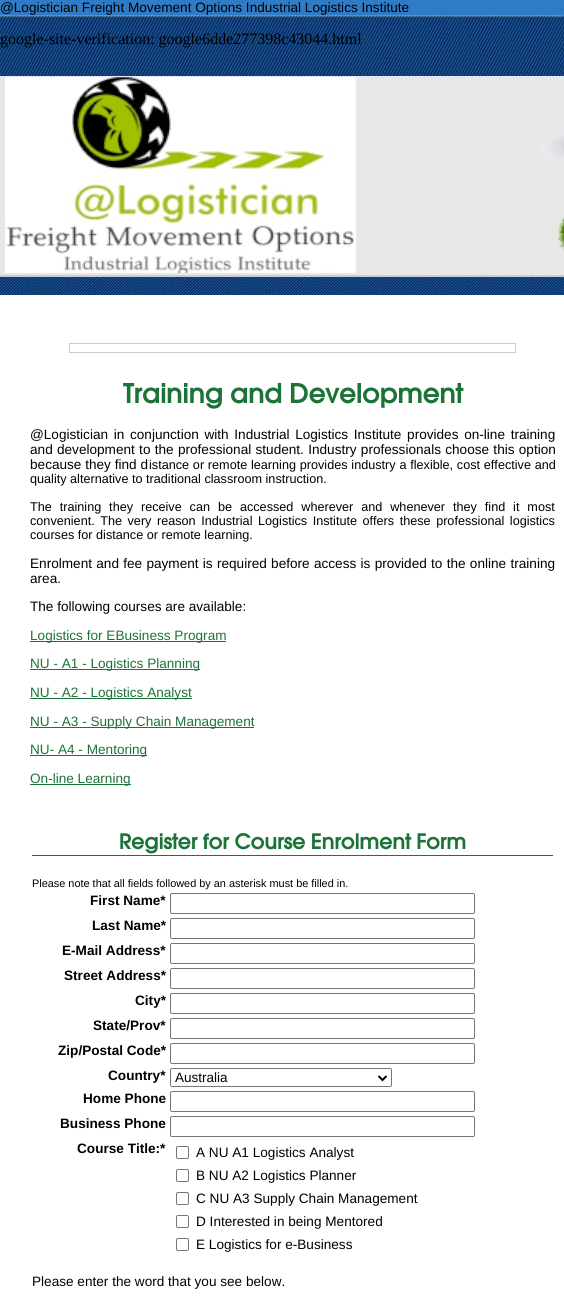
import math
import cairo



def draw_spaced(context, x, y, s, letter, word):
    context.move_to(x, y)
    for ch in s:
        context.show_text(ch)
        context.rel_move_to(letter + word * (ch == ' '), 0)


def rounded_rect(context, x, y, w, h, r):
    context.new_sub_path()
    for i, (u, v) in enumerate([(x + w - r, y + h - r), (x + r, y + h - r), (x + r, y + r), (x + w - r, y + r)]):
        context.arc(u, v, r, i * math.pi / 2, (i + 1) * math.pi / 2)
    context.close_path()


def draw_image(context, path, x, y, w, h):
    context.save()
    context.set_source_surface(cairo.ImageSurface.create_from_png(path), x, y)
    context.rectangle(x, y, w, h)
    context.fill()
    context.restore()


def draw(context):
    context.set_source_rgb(1, 1, 1)
    context.paint()
    draw_image(context, "images/1.png", 0, 0, 564, 15)
    draw_image(context, "images/2.png", 0, 15, 564, 280)
    context.rectangle(69.5, 343.5, 446, 9)
    context.set_source_rgb(204 / 255, 204 / 255, 204 / 255)
    context.set_line_width(1)
    context.stroke()
    context.set_source_rgb(28 / 255, 115 / 255, 55 / 255)
    context.rectangle(30, 641, 196, 1)
    context.fill()
    context.rectangle(30, 669, 170, 1)
    context.fill()
    context.rectangle(30, 698, 162, 1)
    context.fill()
    context.rectangle(30, 727, 224, 1)
    context.fill()
    context.rectangle(30, 755, 117, 1)
    context.fill()
    context.rectangle(30, 784, 101, 1)
    context.fill()
    context.rectangle(32, 855, 521, 1)
    context.fill()
    rounded_rect(context, 170.5, 893.5, 304, 20, 1.5)
    context.set_source_rgb(118 / 255, 118 / 255, 118 / 255)
    context.stroke()
    rounded_rect(context, 170.5, 918.5, 304, 20, 1.5)
    context.stroke()
    rounded_rect(context, 170.5, 943.5, 304, 20, 1.5)
    context.stroke()
    rounded_rect(context, 170.5, 968.5, 304, 20, 1.5)
    context.stroke()
    rounded_rect(context, 170.5, 993.5, 304, 20, 1.5)
    context.stroke()
    rounded_rect(context, 170.5, 1018.5, 304, 20, 1.5)
    context.stroke()
    rounded_rect(context, 170.5, 1043.5, 304, 20, 1.5)
    context.stroke()
    rounded_rect(context, 170.5, 1068.5, 221, 18, 1.5)
    context.stroke()
    context.new_path()
    context.move_to(378.5, 1076)
    context.line_to(382.5, 1080)
    context.line_to(386.5, 1076)
    context.set_source_rgb(0, 0, 0)
    context.set_line_width(2)
    context.stroke()
    rounded_rect(context, 170.5, 1091.5, 304, 20, 1.5)
    context.set_source_rgb(118 / 255, 118 / 255, 118 / 255)
    context.set_line_width(1)
    context.stroke()
    rounded_rect(context, 170.5, 1116.5, 304, 20, 1.5)
    context.stroke()
    rounded_rect(context, 176.5, 1146.5, 12, 12, 1.5)
    context.stroke()
    rounded_rect(context, 176.5, 1169.5, 12, 12, 1.5)
    context.stroke()
    rounded_rect(context, 176.5, 1192.5, 12, 12, 1.5)
    context.stroke()
    rounded_rect(context, 176.5, 1215.5, 12, 12, 1.5)
    context.stroke()
    rounded_rect(context, 176.5, 1238.5, 12, 12, 1.5)
    context.stroke()
    context.select_font_face("Liberation Sans")
    context.set_font_size(13.6)
    context.set_source_rgb(0, 0, 0)
    context.move_to(0, 12)
    context.show_text("@Logistician Freight Movement Options Industrial Logistics Institute")
    context.select_font_face("Liberation Serif")
    context.set_font_size(16)
    context.move_to(0, 44)
    context.show_text("google-site-verification: google6dde277398c43044.html")
    context.select_font_face("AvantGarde", cairo.FontSlant.NORMAL, cairo.FontWeight.BOLD)
    context.set_font_size(26)
    context.set_source_rgb(28 / 255, 115 / 255, 55 / 255)
    context.move_to(123, 403)
    context.show_text("Training and Development")
    context.select_font_face("Liberation Sans")
    context.set_font_size(13.6)
    context.set_source_rgb(0, 0, 0)
    draw_spaced(context, 30, 439, "@Logistician in conjunction with Industrial Logistics Institute provides on-line training", 0, 1.9)
    draw_spaced(context, 30, 454, "and development to the professional student. Industry professionals choose this option", 0, 0.5)
    context.move_to(30, 469)
    context.show_text("because they find d")
    context.set_font_size(12.65)
    draw_spaced(context, 149, 469, "istance or remote learning provides industry a flexible, cost effective and", 0, 0.25)
    context.move_to(30, 483)
    context.show_text("quality alternative to traditional classroom instruction.")
    draw_spaced(context, 30, 511, "The training they receive can be accessed wherever and whenever they find it most", 0, 4.4)
    draw_spaced(context, 30, 525, "convenient. The very reason Industrial Logistics Institute offers these professional logistics", 0, 2)
    context.move_to(30, 539)
    context.show_text("courses for distance or remote learning.")
    context.set_font_size(13.6)
    draw_spaced(context, 30, 568, "Enrolment and fee payment is required before access is provided to the online training", 0, 0.5)
    context.move_to(30, 583)
    context.show_text("area.")
    context.move_to(30, 611)
    context.show_text("The following courses are available:")
    context.set_source_rgb(28 / 255, 115 / 255, 55 / 255)
    context.move_to(30, 640)
    context.show_text("Logistics for EBusiness Program")
    context.move_to(30, 668)
    context.show_text("NU - A1 - Logistics Planning")
    context.move_to(30, 697)
    context.show_text("NU - A2 - Logistics Analyst")
    context.move_to(30, 726)
    context.show_text("NU - A3 - Supply Chain Management")
    context.move_to(30, 754)
    context.show_text("NU- A4 - Mentoring")
    context.move_to(30, 783)
    context.show_text("On-line Learning")
    context.select_font_face("AvantGarde", cairo.FontSlant.NORMAL, cairo.FontWeight.BOLD)
    context.set_font_size(20.4)
    context.move_to(119, 849)
    context.show_text("Register for Course Enrolment Form")
    context.select_font_face("Liberation Sans")
    context.set_font_size(10.9)
    context.set_source_rgb(0, 0, 0)
    context.move_to(32, 887)
    context.show_text("Please note that all fields followed by an asterisk must be filled in.")
    context.select_font_face("Liberation Sans", cairo.FontSlant.NORMAL, cairo.FontWeight.BOLD)
    context.set_font_size(13.6)
    context.move_to(90, 905)
    context.show_text("First Name*")
    context.move_to(92, 930)
    context.show_text("Last Name*")
    context.move_to(62, 955)
    context.show_text("E-Mail Address*")
    context.move_to(64, 980)
    context.show_text("Street Address*")
    context.move_to(135, 1005)
    context.show_text("City*")
    context.move_to(93, 1030)
    context.show_text("State/Prov*")
    context.move_to(58, 1055)
    context.show_text("Zip/Postal Code*")
    context.move_to(108, 1080)
    context.show_text("Country*")
    context.select_font_face("Liberation Sans")
    context.set_font_size(13.5)
    context.move_to(175, 1082)
    context.show_text("Australia")
    context.select_font_face("Liberation Sans", cairo.FontSlant.NORMAL, cairo.FontWeight.BOLD)
    context.set_font_size(13.6)
    context.move_to(83, 1103)
    context.show_text("Home Phone")
    context.move_to(60, 1128)
    context.show_text("Business Phone")
    context.move_to(77, 1153)
    context.show_text("Course Title:*")
    context.select_font_face("Liberation Sans")
    context.move_to(196, 1157)
    context.show_text("A NU A1 Logistics Analyst")
    context.move_to(196, 1180)
    context.show_text("B NU A2 Logistics Planner")
    context.move_to(196, 1203)
    context.show_text("C NU A3 Supply Chain Management")
    context.move_to(196, 1226)
    context.show_text("D Interested in being Mentored")
    context.move_to(196, 1249)
    context.show_text("E Logistics for e-Business")
    context.move_to(32, 1286)
    context.show_text("Please enter the word that you see below.")


surface = cairo.ImageSurface(cairo.Format.RGB24, 564, 1312)
context = cairo.Context(surface)
options = cairo.FontOptions()
options.set_hint_metrics(cairo.HintMetrics.OFF)
options.set_hint_style(cairo.HintStyle.NONE)
context.set_font_options(options)
context.set_miter_limit(4)
draw(context)
surface.write_to_png("out.png")
